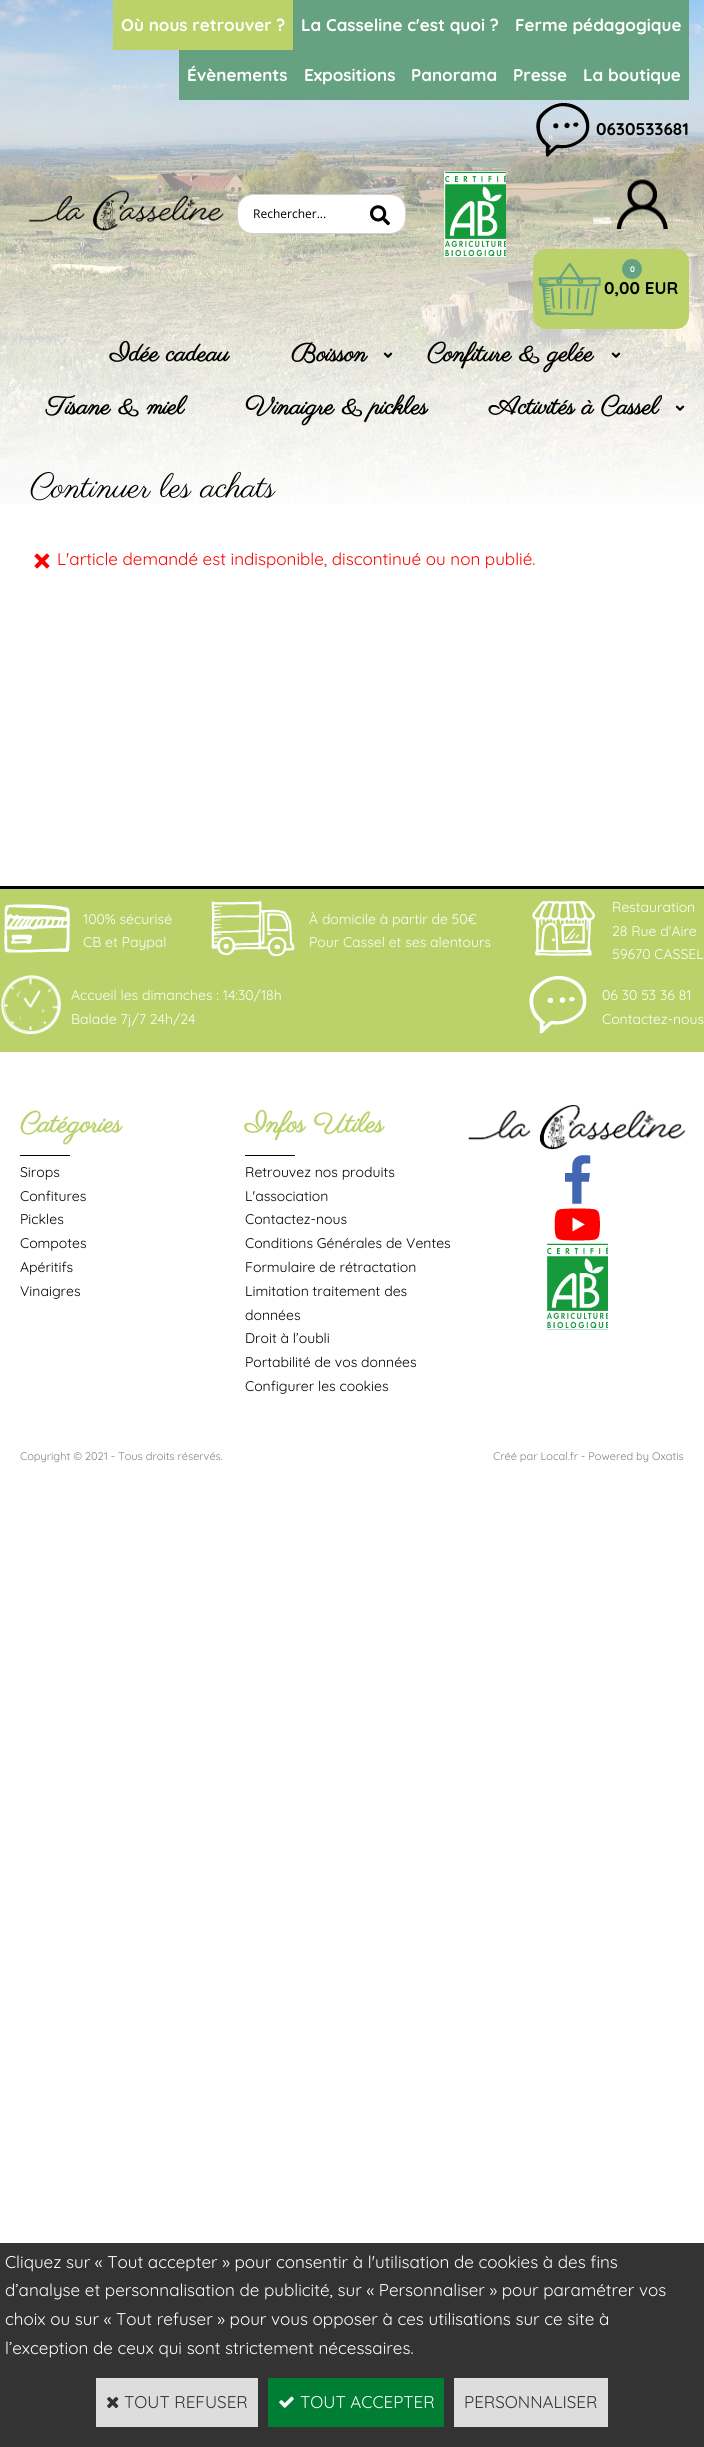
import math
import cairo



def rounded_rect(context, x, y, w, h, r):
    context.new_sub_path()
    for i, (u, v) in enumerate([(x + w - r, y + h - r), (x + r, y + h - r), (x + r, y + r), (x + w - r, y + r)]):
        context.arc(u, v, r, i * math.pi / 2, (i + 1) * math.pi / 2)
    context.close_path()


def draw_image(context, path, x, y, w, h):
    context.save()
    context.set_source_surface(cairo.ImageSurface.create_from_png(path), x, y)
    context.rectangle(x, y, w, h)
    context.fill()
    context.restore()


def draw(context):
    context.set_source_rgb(1, 1, 1)
    context.paint()
    draw_image(context, "images/1.png", 0, 0, 704, 504)
    context.set_source_rgb(187 / 255, 210 / 255, 106 / 255)
    context.rectangle(113, 0, 180, 50)
    context.fill()
    context.set_source_rgb(102 / 255, 162 / 255, 129 / 255)
    context.rectangle(293, 0, 396, 50)
    context.fill()
    context.rectangle(179, 50, 510, 50)
    context.fill()
    draw_image(context, "images/2.png", 28, 190, 196, 41)
    context.set_source_rgb(1, 1, 1)
    context.new_path()
    context.move_to(252, 195)
    context.line_to(355, 195)
    context.line_to(355, 233)
    context.line_to(252, 233)
    context.curve_to(244.5, 233, 238, 226.5, 238, 219)
    context.line_to(238, 209)
    context.curve_to(238, 201.5, 244.5, 195, 252, 195)
    context.close_path()
    context.fill()
    context.set_source_rgb(208 / 255, 208 / 255, 208 / 255)
    context.set_fill_rule(cairo.FillRule.EVEN_ODD)
    context.new_path()
    context.move_to(252, 194)
    context.line_to(355, 194)
    context.line_to(355, 234)
    context.line_to(252, 234)
    context.curve_to(244, 234, 237, 227, 237, 219)
    context.line_to(237, 209)
    context.curve_to(237, 201, 244, 194, 252, 194)
    context.close_path()
    context.move_to(252, 195)
    context.line_to(355, 195)
    context.line_to(355, 233)
    context.line_to(252, 233)
    context.curve_to(244, 233, 238, 227, 238, 219)
    context.line_to(238, 209)
    context.curve_to(238, 201, 244, 195, 252, 195)
    context.close_path()
    context.fill()
    context.set_source_rgb(1, 1, 1)
    context.new_path()
    context.move_to(355, 195)
    context.line_to(391, 195)
    context.curve_to(398.5, 195, 405, 201.5, 405, 209)
    context.line_to(405, 219)
    context.curve_to(405, 226.5, 398.5, 233, 391, 233)
    context.line_to(355, 233)
    context.close_path()
    context.fill()
    context.set_source_rgb(208 / 255, 208 / 255, 208 / 255)
    context.new_path()
    context.move_to(355, 194)
    context.line_to(391, 194)
    context.curve_to(399, 194, 406, 201, 406, 209)
    context.line_to(406, 219)
    context.curve_to(406, 227, 399, 234, 391, 234)
    context.line_to(355, 234)
    context.close_path()
    context.move_to(355, 195)
    context.line_to(391, 195)
    context.curve_to(399, 195, 405, 201, 405, 209)
    context.line_to(405, 219)
    context.curve_to(405, 227, 399, 233, 391, 233)
    context.line_to(355, 233)
    context.close_path()
    context.fill()
    draw_image(context, "images/3.png", 370, 205, 20, 21)
    draw_image(context, "images/4.png", 444, 171, 62, 87)
    draw_image(context, "images/5.png", 536, 103, 54, 55)
    draw_image(context, "images/6.png", 616, 179, 52, 50)
    context.set_source_rgb(187 / 255, 210 / 255, 106 / 255)
    rounded_rect(context, 533, 249, 156, 80, 13)
    context.fill()
    draw_image(context, "images/7.png", 538, 263, 63, 53)
    context.set_source_rgb(102 / 255, 162 / 255, 129 / 255)
    context.arc(632, 269, 10, 0, 2 * math.pi)
    context.fill()
    draw_image(context, "images/8.png", 383, 352, 10, 6)
    draw_image(context, "images/9.png", 611, 352, 10, 6)
    draw_image(context, "images/10.png", 675, 405, 10, 6)
    draw_image(context, "images/11.png", 34, 553, 16, 16)
    context.set_source_rgb(187 / 255, 210 / 255, 106 / 255)
    context.rectangle(0, 889, 704, 163)
    context.fill()
    context.set_source_rgb(0, 0, 0)
    context.rectangle(0, 886, 704, 3)
    context.fill()
    draw_image(context, "images/12.png", 4, 904, 66, 49)
    draw_image(context, "images/13.png", 211, 901, 84, 56)
    draw_image(context, "images/14.png", 532, 901, 63, 55)
    draw_image(context, "images/15.png", 1, 975, 60, 60)
    draw_image(context, "images/16.png", 529, 976, 58, 58)
    context.rectangle(20, 1155, 50, 1)
    context.fill()
    context.rectangle(245, 1155, 50, 1)
    context.fill()
    draw_image(context, "images/17.png", 468, 1105, 218, 45)
    draw_image(context, "images/18.png", 565, 1155, 26, 49)
    draw_image(context, "images/19.png", 554, 1208, 46, 33)
    draw_image(context, "images/4.png", 546, 1243, 62, 87)
    context.set_source_rgb(51 / 255, 51 / 255, 51 / 255)
    context.rectangle(0, 2243, 704, 204)
    context.fill()
    context.set_source_rgb(221 / 255, 221 / 255, 221 / 255)
    context.rectangle(96, 2378, 162, 49)
    context.fill()
    draw_image(context, "images/20.png", 107, 2397, 12, 12)
    context.set_source_rgb(0, 126 / 255, 51 / 255)
    context.rectangle(268, 2378, 176, 49)
    context.fill()
    draw_image(context, "images/21.png", 279, 2396, 15, 12)
    context.set_source_rgb(221 / 255, 221 / 255, 221 / 255)
    context.rectangle(454, 2378, 154, 49)
    context.fill()
    context.select_font_face("Quicksand", cairo.FontSlant.NORMAL, cairo.FontWeight.BOLD)
    context.set_font_size(17)
    context.set_source_rgb(1, 1, 1)
    context.move_to(121, 31)
    context.show_text("Où nous retrouver ?")
    context.move_to(301, 31)
    context.show_text("La Casseline c'est quoi ?")
    context.move_to(515, 31)
    context.show_text("Ferme pédagogique")
    context.move_to(187, 81)
    context.show_text("Évènements")
    context.move_to(304, 81)
    context.show_text("Expositions")
    context.move_to(411, 81)
    context.show_text("Panorama")
    context.move_to(513, 81)
    context.show_text("Presse")
    context.move_to(583, 81)
    context.show_text("La boutique")
    context.select_font_face("Open Sans")
    context.set_font_size(12)
    context.set_source_rgb(0, 0, 0)
    context.move_to(253, 218)
    context.show_text("Rechercher...")
    context.select_font_face("Quicksand", cairo.FontSlant.NORMAL, cairo.FontWeight.BOLD)
    context.set_font_size(17)
    context.move_to(596, 135)
    context.show_text("0630533681")
    context.set_font_size(8)
    context.set_source_rgb(1, 1, 1)
    context.move_to(630, 272)
    context.show_text("0")
    context.set_font_size(17)
    context.set_source_rgb(0, 0, 0)
    context.move_to(604, 294)
    context.show_text("0,00 EUR")
    context.select_font_face("Parisienne", cairo.FontSlant.NORMAL, cairo.FontWeight.BOLD)
    context.set_font_size(25.5)
    context.move_to(110, 361)
    context.show_text("Idée cadeau")
    context.move_to(291, 361)
    context.show_text("Boisson")
    context.move_to(427, 361)
    context.show_text("Confiture & gelée")
    context.move_to(46, 414)
    context.show_text("Tisane & miel")
    context.move_to(245, 414)
    context.show_text("Vinaigre & pickles")
    context.move_to(489, 414)
    context.show_text("Activités à Cassel")
    context.select_font_face("Parisienne")
    context.set_font_size(34)
    context.move_to(30, 497)
    context.show_text("Continuer les achats")
    context.select_font_face("Quicksand")
    context.set_font_size(17)
    context.set_source_rgb(1, 0, 0)
    context.move_to(57, 565)
    context.show_text("L'article demandé est indisponible, discontinué ou non publié.")
    context.set_font_size(14)
    context.set_source_rgb(1, 1, 1)
    context.move_to(83, 924)
    context.show_text("100% sécurisé")
    context.move_to(83, 947)
    context.show_text("CB et Paypal")
    context.move_to(309, 924)
    context.show_text("À domicile à partir de 50€")
    context.move_to(309, 947)
    context.show_text("Pour Cassel et ses alentours")
    context.move_to(612, 912)
    context.show_text("Restauration")
    context.move_to(612, 936)
    context.show_text("28 Rue d'Aire")
    context.move_to(612, 959)
    context.show_text("59670 CASSEL")
    context.move_to(71, 1000)
    context.show_text("Accueil les dimanches : 14:30/18h")
    context.move_to(71, 1024)
    context.show_text("Balade 7j/7 24h/24")
    context.move_to(602, 1000)
    context.show_text("06 30 53 36 81")
    context.move_to(602, 1024)
    context.show_text("Contactez-nous")
    context.select_font_face("Parisienne", cairo.FontSlant.NORMAL, cairo.FontWeight.BOLD)
    context.set_font_size(28)
    context.set_source_rgb(187 / 255, 210 / 255, 106 / 255)
    context.move_to(20, 1132)
    context.show_text("Catégories")
    context.select_font_face("Quicksand")
    context.set_font_size(14)
    context.set_source_rgb(0, 0, 0)
    context.move_to(20, 1177)
    context.show_text("Sirops")
    context.move_to(20, 1201)
    context.show_text("Confitures")
    context.move_to(20, 1224)
    context.show_text("Pickles")
    context.move_to(20, 1248)
    context.show_text("Compotes")
    context.move_to(20, 1272)
    context.show_text("Apéritifs")
    context.move_to(20, 1296)
    context.show_text("Vinaigres")
    context.select_font_face("Parisienne", cairo.FontSlant.NORMAL, cairo.FontWeight.BOLD)
    context.set_font_size(28)
    context.set_source_rgb(187 / 255, 210 / 255, 106 / 255)
    context.move_to(245, 1132)
    context.show_text("Infos Utiles")
    context.select_font_face("Quicksand")
    context.set_font_size(14)
    context.set_source_rgb(0, 0, 0)
    context.move_to(245, 1177)
    context.show_text("Retrouvez nos produits")
    context.move_to(245, 1201)
    context.show_text("L'association")
    context.move_to(245, 1224)
    context.show_text("Contactez-nous")
    context.move_to(245, 1248)
    context.show_text("Conditions Générales de Ventes")
    context.move_to(245, 1272)
    context.show_text("Formulaire de rétractation")
    context.move_to(245, 1296)
    context.show_text("Limitation traitement des")
    context.move_to(245, 1320)
    context.show_text("données")
    context.move_to(245, 1343)
    context.show_text("Droit à l’oubli")
    context.move_to(245, 1367)
    context.show_text("Portabilité de vos données")
    context.move_to(245, 1391)
    context.show_text("Configurer les cookies")
    context.set_font_size(11)
    context.set_source_rgb(128 / 255, 128 / 255, 128 / 255)
    context.move_to(20, 1460)
    context.show_text("Copyright © 2021 - Tous droits réservés.")
    context.move_to(493, 1460)
    context.show_text("Créé par Local.fr - Powered by Oxatis")
    context.set_font_size(17)
    context.set_source_rgb(1, 1, 1)
    context.move_to(5, 2268)
    context.show_text("Cliquez sur « Tout accepter » pour consentir à l'utilisation de cookies à des fins")
    context.move_to(5, 2296)
    context.show_text("d’analyse et personnalisation de publicité, sur « Personnaliser » pour paramétrer vos")
    context.move_to(5, 2325)
    context.show_text("choix ou sur « Tout refuser » pour vous opposer à ces utilisations sur ce site à")
    context.move_to(5, 2354)
    context.show_text("l’exception de ceux qui sont strictement nécessaires.")
    context.set_source_rgb(51 / 255, 51 / 255, 51 / 255)
    context.move_to(124, 2408)
    context.show_text("TOUT REFUSER")
    context.set_source_rgb(1, 1, 1)
    context.move_to(300, 2408)
    context.show_text("TOUT ACCEPTER")
    context.set_source_rgb(51 / 255, 51 / 255, 51 / 255)
    context.move_to(464, 2408)
    context.show_text("PERSONNALISER")


surface = cairo.ImageSurface(cairo.Format.RGB24, 704, 2447)
context = cairo.Context(surface)
options = cairo.FontOptions()
options.set_hint_metrics(cairo.HintMetrics.OFF)
options.set_hint_style(cairo.HintStyle.NONE)
context.set_font_options(options)
context.set_miter_limit(4)
draw(context)
surface.write_to_png("out.png")
